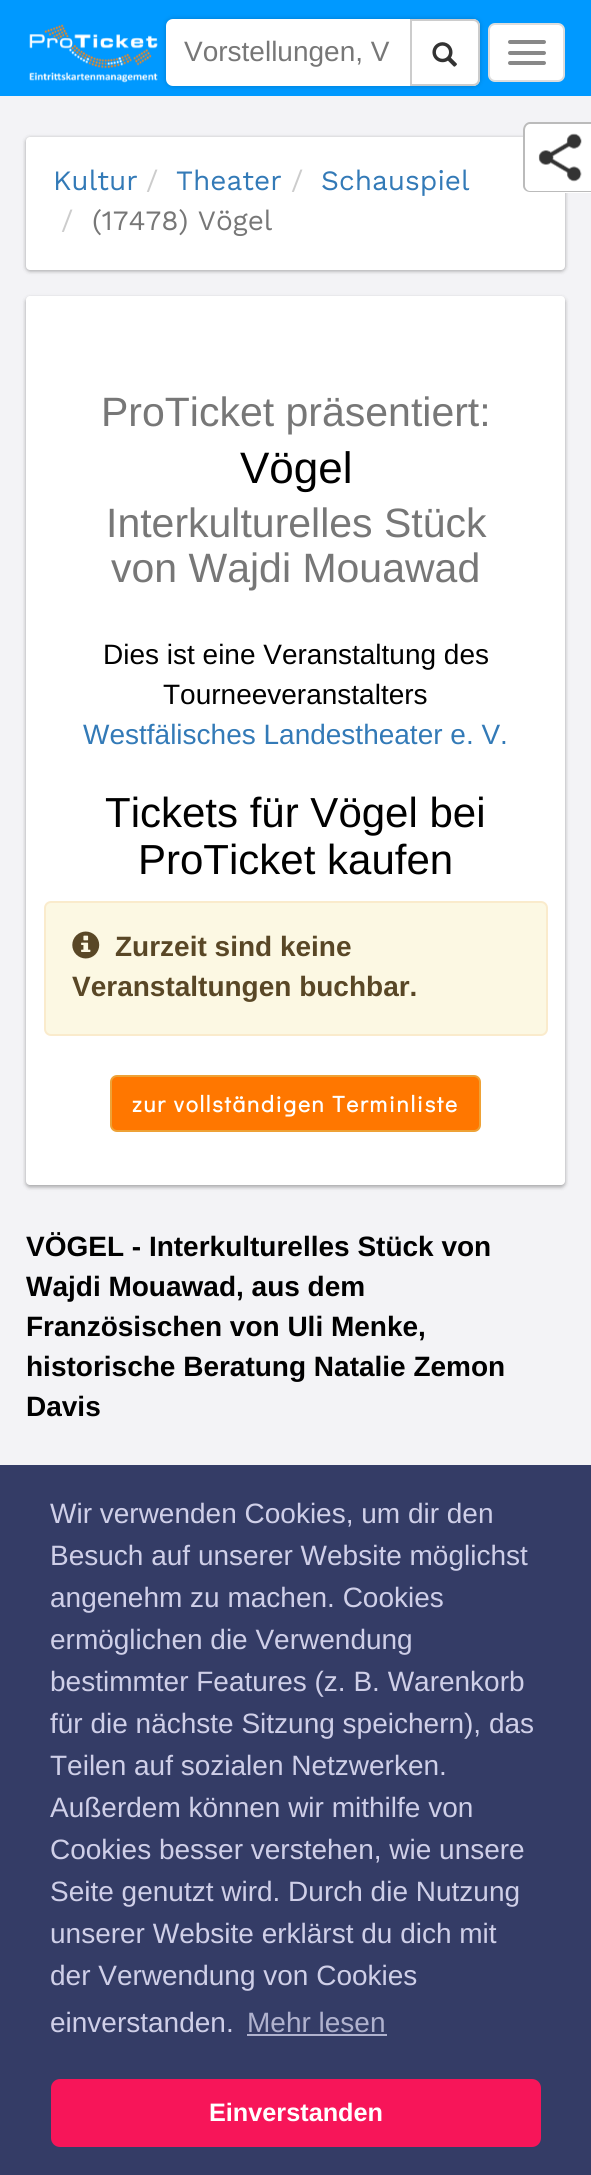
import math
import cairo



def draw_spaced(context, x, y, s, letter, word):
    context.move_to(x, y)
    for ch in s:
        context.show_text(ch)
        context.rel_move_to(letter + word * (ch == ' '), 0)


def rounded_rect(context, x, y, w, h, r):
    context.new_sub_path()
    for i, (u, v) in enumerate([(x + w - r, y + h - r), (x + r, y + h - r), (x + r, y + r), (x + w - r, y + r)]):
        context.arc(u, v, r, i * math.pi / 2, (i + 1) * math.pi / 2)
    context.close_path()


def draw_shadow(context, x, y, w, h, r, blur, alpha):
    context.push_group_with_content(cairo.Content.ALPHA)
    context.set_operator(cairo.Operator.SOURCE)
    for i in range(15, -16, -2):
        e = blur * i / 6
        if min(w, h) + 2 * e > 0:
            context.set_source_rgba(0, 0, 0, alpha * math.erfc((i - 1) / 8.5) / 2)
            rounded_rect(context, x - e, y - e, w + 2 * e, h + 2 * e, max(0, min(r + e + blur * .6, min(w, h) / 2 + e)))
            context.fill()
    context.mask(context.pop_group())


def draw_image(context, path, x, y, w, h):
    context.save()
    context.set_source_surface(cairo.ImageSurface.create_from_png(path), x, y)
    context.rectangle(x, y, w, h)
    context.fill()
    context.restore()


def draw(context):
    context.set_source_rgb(243 / 255, 243 / 255, 246 / 255)
    context.paint()
    context.set_source_rgb(0, 153 / 255, 1)
    context.rectangle(0, 0, 591, 96)
    context.fill()
    draw_image(context, "images/1.png", 29, 24, 129, 59)
    context.set_source_rgb(1, 1, 1)
    rounded_rect(context, 489, 24, 75, 57, 6)
    context.fill_preserve()
    context.set_source_rgb(221 / 255, 221 / 255, 221 / 255)
    context.stroke()
    context.set_source_rgb(0, 0, 0)
    draw_shadow(context, 166, 19, 314, 67, 7, 2.5, 0.2)
    context.set_source_rgb(1, 1, 1)
    rounded_rect(context, 166, 19, 314, 67, 7)
    context.fill()
    context.new_path()
    context.move_to(411, 20)
    context.line_to(473, 20)
    context.curve_to(476.5, 20, 479, 22.5, 479, 26)
    context.line_to(479, 79)
    context.curve_to(479, 82.5, 476.5, 85, 473, 85)
    context.line_to(411, 85)
    context.close_path()
    context.fill_preserve()
    context.set_source_rgb(204 / 255, 204 / 255, 204 / 255)
    context.stroke()
    draw_image(context, "images/2.png", 432, 42, 25, 25)
    context.set_source_rgb(136 / 255, 136 / 255, 136 / 255)
    rounded_rect(context, 508, 40, 38, 4, 2)
    context.fill()
    rounded_rect(context, 508, 51, 38, 4, 2)
    context.fill()
    rounded_rect(context, 508, 61, 38, 4, 2)
    context.fill()
    context.set_source_rgb(0, 0, 0)
    draw_shadow(context, 26, 138, 539, 133, 4, 2, 0.24)
    draw_shadow(context, 26, 138, 539, 133, 4, 2.5, 0.12)
    context.set_source_rgb(1, 1, 1)
    rounded_rect(context, 26, 137, 539, 133, 4)
    context.fill()
    context.new_path()
    context.move_to(530, 123)
    context.line_to(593, 123)
    context.line_to(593, 193)
    context.line_to(530, 193)
    context.curve_to(526, 193, 523, 190, 523, 186)
    context.line_to(523, 130)
    context.curve_to(523, 126, 526, 123, 530, 123)
    context.close_path()
    context.fill()
    draw_image(context, "images/3.png", 538, 133, 44, 49)
    context.set_source_rgb(187 / 255, 187 / 255, 187 / 255)
    context.set_fill_rule(cairo.FillRule.EVEN_ODD)
    context.new_path()
    context.move_to(530, 122)
    context.line_to(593, 122)
    context.line_to(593, 192)
    context.line_to(530, 192)
    context.curve_to(526, 192, 523, 189, 523, 186)
    context.line_to(523, 130)
    context.curve_to(523, 126, 526, 122, 530, 122)
    context.close_path()
    context.move_to(530, 124)
    context.line_to(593, 124)
    context.line_to(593, 191)
    context.line_to(530, 191)
    context.curve_to(527, 191, 525, 188, 525, 186)
    context.line_to(525, 130)
    context.curve_to(525, 127, 527, 124, 530, 124)
    context.close_path()
    context.fill()
    context.set_source_rgb(0, 0, 0)
    draw_shadow(context, 26, 298, 539, 889, 4, 2, 0.24)
    draw_shadow(context, 26, 298, 539, 889, 4, 2.5, 0.12)
    context.set_source_rgb(1, 1, 1)
    rounded_rect(context, 26, 296, 539, 889, 4)
    context.fill()
    context.set_source_rgb(252 / 255, 248 / 255, 227 / 255)
    rounded_rect(context, 45, 902, 502, 133, 6)
    context.fill_preserve()
    context.set_source_rgb(250 / 255, 235 / 255, 204 / 255)
    context.stroke()
    draw_image(context, "images/4.png", 72, 931, 28, 28)
    context.set_source_rgb(1, 119 / 255, 0)
    rounded_rect(context, 111, 1076, 369, 55, 6)
    context.fill_preserve()
    context.set_source_rgb(238 / 255, 162 / 255, 54 / 255)
    context.stroke()
    context.set_source_rgb(52 / 255, 60 / 255, 102 / 255)
    context.rectangle(0, 1465, 591, 710)
    context.fill()
    context.set_source_rgb(176 / 255, 178 / 255, 206 / 255)
    context.rectangle(247, 2034, 140, 2)
    context.fill()
    context.set_source_rgb(247 / 255, 21 / 255, 89 / 255)
    rounded_rect(context, 51, 2079, 490, 68, 9)
    context.fill()
    context.select_font_face("Liberation Sans")
    context.set_font_size(28)
    context.set_source_rgb(119 / 255, 119 / 255, 119 / 255)
    context.move_to(184, 61)
    context.show_text("Vorstellungen, V")
    context.select_font_face("Work Sans")
    context.set_source_rgb(51 / 255, 122 / 255, 183 / 255)
    context.move_to(53, 190)
    context.show_text("Kultur")
    context.set_source_rgb(204 / 255, 204 / 255, 204 / 255)
    context.move_to(146, 190)
    context.show_text("/")
    context.set_source_rgb(51 / 255, 122 / 255, 183 / 255)
    context.move_to(176, 190)
    context.show_text("Theater")
    context.set_source_rgb(204 / 255, 204 / 255, 204 / 255)
    context.move_to(291, 190)
    context.show_text("/")
    context.set_source_rgb(51 / 255, 122 / 255, 183 / 255)
    context.move_to(321, 190)
    context.show_text("Schauspiel")
    context.set_source_rgb(204 / 255, 204 / 255, 204 / 255)
    context.move_to(61, 230)
    context.show_text("/")
    context.set_source_rgb(119 / 255, 119 / 255, 119 / 255)
    context.move_to(92, 230)
    context.show_text("(17478) Vögel")
    context.select_font_face("Liberation Sans")
    context.set_font_size(41)
    context.move_to(101, 426)
    context.show_text("ProTicket präsentiert:")
    context.set_font_size(44)
    context.set_source_rgb(0, 0, 0)
    context.move_to(240, 483)
    context.show_text("Vögel")
    context.set_font_size(41)
    context.set_source_rgb(119 / 255, 119 / 255, 119 / 255)
    context.move_to(106, 537)
    context.show_text("Interkulturelles Stück")
    context.move_to(111, 582)
    context.show_text("von Wajdi Mouawad")
    context.set_font_size(28)
    context.set_source_rgb(0, 0, 0)
    context.move_to(103, 664)
    context.show_text("Dies ist eine Veranstaltung des")
    context.move_to(163, 704)
    context.show_text("Tourneeveranstalters")
    context.set_source_rgb(51 / 255, 122 / 255, 183 / 255)
    context.move_to(83, 744)
    context.show_text("Westfälisches Landestheater e. V.")
    context.set_font_size(42)
    context.set_source_rgb(0, 0, 0)
    context.move_to(105, 827)
    context.show_text("Tickets für Vögel bei")
    context.move_to(138, 874)
    context.show_text("ProTicket kaufen")
    context.select_font_face("Liberation Sans", cairo.FontSlant.NORMAL, cairo.FontWeight.BOLD)
    context.set_font_size(28)
    context.set_source_rgb(89 / 255, 71 / 255, 38 / 255)
    context.move_to(115, 956)
    context.show_text("Zurzeit sind keine")
    context.move_to(72, 996)
    context.show_text("Veranstaltungen buchbar.")
    context.select_font_face("Didact Gothic", cairo.FontSlant.NORMAL, cairo.FontWeight.BOLD)
    context.set_font_size(22.75)
    context.set_source_rgb(1, 1, 1)
    draw_spaced(context, 132, 1112, "zur vollständigen Terminliste", 1.75, 0)
    context.select_font_face("Liberation Sans", cairo.FontSlant.NORMAL, cairo.FontWeight.BOLD)
    context.set_font_size(28)
    context.set_source_rgb(0, 0, 0)
    context.move_to(26, 1256)
    context.show_text("VÖGEL - Interkulturelles Stück von")
    context.move_to(26, 1296)
    context.show_text("Wajdi Mouawad, aus dem")
    context.move_to(26, 1336)
    context.show_text("Französischen von Uli Menke,")
    context.move_to(26, 1376)
    context.show_text("historische Beratung Natalie Zemon")
    context.move_to(26, 1416)
    context.show_text("Davis")
    context.select_font_face("Liberation Sans")
    context.set_source_rgb(207 / 255, 207 / 255, 232 / 255)
    context.move_to(50, 1523)
    context.show_text("Wir verwenden Cookies, um dir den")
    context.move_to(50, 1565)
    context.show_text("Besuch auf unserer Website möglichst")
    context.move_to(50, 1607)
    context.show_text("angenehm zu machen. Cookies")
    context.move_to(50, 1649)
    context.show_text("ermöglichen die Verwendung")
    context.move_to(50, 1691)
    context.show_text("bestimmter Features (z. B. Warenkorb")
    context.move_to(50, 1733)
    context.show_text("für die nächste Sitzung speichern), das")
    context.move_to(50, 1775)
    context.show_text("Teilen auf sozialen Netzwerken.")
    context.move_to(50, 1817)
    context.show_text("Außerdem können wir mithilfe von")
    context.move_to(50, 1859)
    context.show_text("Cookies besser verstehen, wie unsere")
    context.move_to(50, 1901)
    context.show_text("Seite genutzt wird. Durch die Nutzung")
    context.move_to(50, 1943)
    context.show_text("unserer Website erklärst du dich mit")
    context.move_to(50, 1985)
    context.show_text("der Verwendung von Cookies")
    context.move_to(50, 2032)
    context.show_text("einverstanden.")
    context.set_source_rgb(176 / 255, 178 / 255, 206 / 255)
    context.move_to(247, 2032)
    context.show_text("Mehr lesen")
    context.select_font_face("Liberation Sans", cairo.FontSlant.NORMAL, cairo.FontWeight.BOLD)
    context.set_font_size(25.25)
    context.set_source_rgb(1, 1, 1)
    context.move_to(209, 2121)
    context.show_text("Einverstanden")


surface = cairo.ImageSurface(cairo.Format.RGB24, 591, 2175)
context = cairo.Context(surface)
options = cairo.FontOptions()
options.set_hint_metrics(cairo.HintMetrics.OFF)
options.set_hint_style(cairo.HintStyle.NONE)
context.set_font_options(options)
context.set_miter_limit(4)
draw(context)
surface.write_to_png("out.png")
